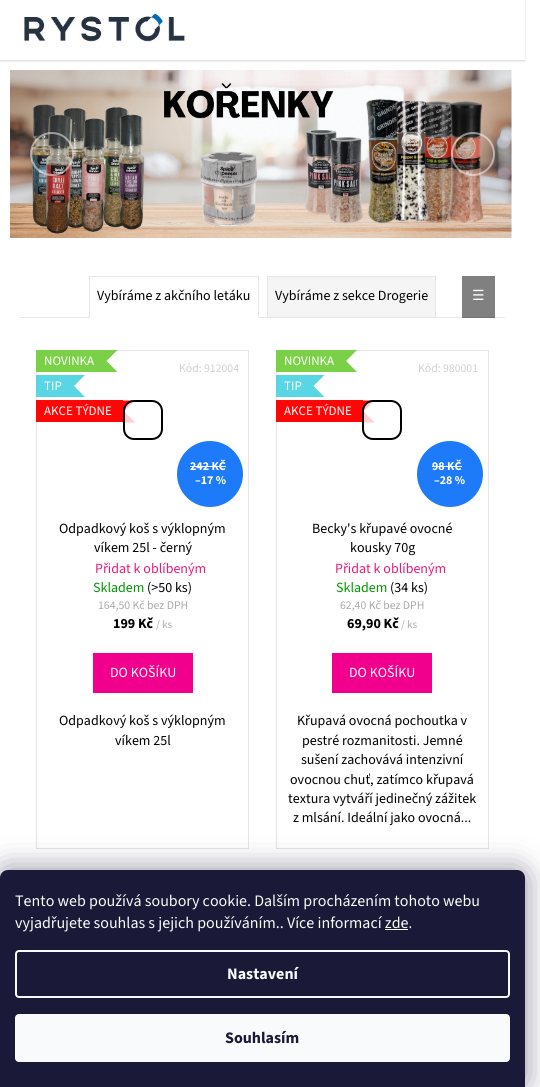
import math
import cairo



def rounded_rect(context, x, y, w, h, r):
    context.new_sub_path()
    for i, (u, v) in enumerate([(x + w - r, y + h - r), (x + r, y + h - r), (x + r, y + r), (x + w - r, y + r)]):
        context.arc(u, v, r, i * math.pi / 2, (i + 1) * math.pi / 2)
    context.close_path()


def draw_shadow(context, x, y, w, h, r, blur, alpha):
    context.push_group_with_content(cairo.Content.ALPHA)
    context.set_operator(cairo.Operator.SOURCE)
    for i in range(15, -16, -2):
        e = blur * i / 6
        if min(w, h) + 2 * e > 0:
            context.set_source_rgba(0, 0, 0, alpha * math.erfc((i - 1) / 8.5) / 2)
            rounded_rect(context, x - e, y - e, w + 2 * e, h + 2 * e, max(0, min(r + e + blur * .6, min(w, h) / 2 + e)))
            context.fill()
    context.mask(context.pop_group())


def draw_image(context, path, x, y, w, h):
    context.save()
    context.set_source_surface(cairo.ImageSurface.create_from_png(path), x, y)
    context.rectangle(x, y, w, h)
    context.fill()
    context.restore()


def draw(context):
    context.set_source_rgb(1, 1, 1)
    context.paint()
    context.set_source_rgb(128 / 255, 128 / 255, 128 / 255)
    context.rectangle(462, 276, 33, 41)
    context.fill()
    context.save()
    context.set_fill_rule(cairo.FillRule.EVEN_ODD)
    context.new_path()
    context.move_to(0, 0)
    context.line_to(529, 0)
    context.line_to(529, 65)
    context.line_to(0, 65)
    context.close_path()
    context.move_to(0, 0)
    context.line_to(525, 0)
    context.line_to(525, 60)
    context.line_to(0, 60)
    context.close_path()
    context.clip()
    context.set_source_rgb(0, 0, 0)
    draw_shadow(context, 0, 1, 525, 60, 0, 1, 0.16)
    context.restore()
    draw_image(context, "images/1.png", 23, 12, 163, 30)
    draw_image(context, "images/2.png", 10, 70, 502, 168)
    context.arc(52, 154, 21, 0, 2 * math.pi)
    context.set_source_rgba(1, 1, 1, 0.5)
    context.stroke()
    context.arc(473, 154, 21, 0, 2 * math.pi)
    context.stroke()
    context.set_source_rgb(231 / 255, 231 / 255, 231 / 255)
    context.rectangle(20, 317, 485, 1)
    context.fill()
    context.set_source_rgb(116 / 255, 116 / 255, 116 / 255)
    context.rectangle(462, 317, 33, 1)
    context.fill()
    context.set_source_rgb(231 / 255, 231 / 255, 231 / 255)
    context.rectangle(89, 276, 170, 1)
    context.fill()
    context.rectangle(258, 276, 1, 42)
    context.fill()
    context.set_source_rgb(1, 1, 1)
    context.rectangle(89, 317, 170, 1)
    context.fill()
    context.set_source_rgb(231 / 255, 231 / 255, 231 / 255)
    context.rectangle(89, 276, 1, 42)
    context.fill()
    context.set_source_rgb(245 / 255, 245 / 255, 245 / 255)
    context.rectangle(267.5, 276.5, 168, 41)
    context.fill_preserve()
    context.set_source_rgb(231 / 255, 231 / 255, 231 / 255)
    context.set_line_width(1)
    context.stroke()
    context.rectangle(36.5, 350.5, 212, 498)
    context.set_source_rgb(230 / 255, 230 / 255, 230 / 255)
    context.stroke()
    context.set_source_rgb(122 / 255, 208 / 255, 70 / 255)
    context.rectangle(36, 350, 69, 22)
    context.fill()
    context.set_source_rgb(89 / 255, 214 / 255, 228 / 255)
    context.rectangle(36, 375, 37, 22)
    context.fill()
    context.set_source_rgb(1, 5 / 255, 5 / 255)
    context.rectangle(36, 400, 87, 22)
    context.fill()
    context.set_source_rgb(29 / 255, 122 / 255, 248 / 255)
    context.arc(210, 474, 33, 0, 2 * math.pi)
    context.fill()
    context.set_source_rgb(1, 1, 1)
    context.rectangle(190, 466, 36, 1)
    context.fill()
    context.set_source_rgb(241 / 255, 0, 141 / 255)
    context.rectangle(93, 653, 100, 40)
    context.fill()
    context.rectangle(276.5, 350.5, 212, 498)
    context.set_source_rgb(230 / 255, 230 / 255, 230 / 255)
    context.stroke()
    context.set_source_rgb(122 / 255, 208 / 255, 70 / 255)
    context.rectangle(276, 350, 69, 22)
    context.fill()
    context.set_source_rgb(89 / 255, 214 / 255, 228 / 255)
    context.rectangle(276, 375, 37, 22)
    context.fill()
    context.set_source_rgb(1, 5 / 255, 5 / 255)
    context.rectangle(276, 400, 87, 22)
    context.fill()
    context.set_source_rgb(29 / 255, 122 / 255, 248 / 255)
    context.arc(450, 474, 33, 0, 2 * math.pi)
    context.fill()
    context.set_source_rgb(1, 1, 1)
    context.rectangle(432, 466, 30, 1)
    context.fill()
    context.set_source_rgb(241 / 255, 0, 141 / 255)
    context.rectangle(332, 653, 100, 40)
    context.fill()
    context.set_source_rgb(27 / 255, 25 / 255, 57 / 255)
    draw_shadow(context, 0, 870, 525, 217, 8, 15, 0.5)
    context.set_source_rgb(26 / 255, 25 / 255, 55 / 255)
    context.new_path()
    context.move_to(8, 870)
    context.line_to(517, 870)
    context.curve_to(521.5, 870, 525, 873.5, 525, 878)
    context.line_to(525, 1087)
    context.line_to(0, 1087)
    context.line_to(0, 878)
    context.curve_to(0, 873.5, 3.5, 870, 8, 870)
    context.close_path()
    context.fill()
    context.set_source_rgb(248 / 255, 250 / 255, 251 / 255)
    context.rectangle(385, 929, 23, 1)
    context.fill()
    rounded_rect(context, 16, 951, 493, 46, 3)
    context.set_line_width(2)
    context.stroke()
    rounded_rect(context, 15, 1014, 495, 48, 4)
    context.fill()
    context.select_font_face("Source Sans 3")
    context.set_font_size(14)
    context.set_source_rgb(0, 0, 0)
    context.move_to(97, 300)
    context.show_text("Vybíráme z akčního letáku")
    context.move_to(275, 300)
    context.show_text("Vybíráme z sekce Drogerie")
    context.select_font_face("DejaVu Sans")
    context.set_source_rgb(1, 1, 1)
    context.move_to(472, 300)
    context.show_text("☰")
    context.select_font_face("Source Sans 3")
    context.set_font_size(13)
    context.move_to(44, 365)
    context.show_text("NOVINKA")
    context.set_source_rgb(122 / 255, 208 / 255, 70 / 255)
    context.new_path()
    context.move_to(93.5, 360)
    context.line_to(105.5, 360)
    context.line_to(117.5, 372)
    context.line_to(105.5, 372)
    context.close_path()
    context.fill()
    context.new_path()
    context.move_to(105.5, 350)
    context.line_to(117.5, 350)
    context.line_to(105.5, 362)
    context.line_to(93.5, 362)
    context.close_path()
    context.fill()
    context.set_source_rgb(1, 1, 1)
    context.move_to(44, 390)
    context.show_text("TIP")
    context.set_source_rgb(89 / 255, 214 / 255, 228 / 255)
    context.new_path()
    context.move_to(61, 385)
    context.line_to(73, 385)
    context.line_to(85, 397)
    context.line_to(73, 397)
    context.close_path()
    context.fill()
    context.new_path()
    context.move_to(73, 375)
    context.line_to(85, 375)
    context.line_to(73, 387)
    context.line_to(61, 387)
    context.close_path()
    context.fill()
    context.set_source_rgb(1, 1, 1)
    context.move_to(44, 415)
    context.show_text("AKCE TÝDNE")
    context.set_source_rgb(1, 5 / 255, 5 / 255)
    context.new_path()
    context.move_to(111, 410.5)
    context.line_to(123, 410.5)
    context.line_to(135, 422.5)
    context.line_to(123, 422.5)
    context.close_path()
    context.fill()
    context.new_path()
    context.move_to(123, 400.5)
    context.line_to(135, 400.5)
    context.line_to(123, 412.5)
    context.line_to(111, 412.5)
    context.close_path()
    context.fill()
    context.set_source_rgba(1, 1, 1, 0.8)
    rounded_rect(context, 124, 401, 38, 38, 10)
    context.fill_preserve()
    context.set_source_rgb(0, 0, 0)
    context.stroke()
    context.select_font_face("Source Sans 3", cairo.FontSlant.NORMAL, cairo.FontWeight.BOLD)
    context.set_font_size(12)
    context.set_source_rgb(1, 1, 1)
    context.move_to(190, 470)
    context.show_text("242 KČ")
    context.move_to(195, 484)
    context.show_text("–17 %")
    context.select_font_face("Source Sans 3")
    context.set_font_size(11.75)
    context.set_source_rgb(207 / 255, 207 / 255, 207 / 255)
    context.move_to(179, 372)
    context.show_text("Kód: 912004")
    context.set_font_size(14)
    context.set_source_rgb(0, 0, 0)
    context.move_to(59, 533)
    context.show_text("Odpadkový koš s výklopným")
    context.move_to(94, 552)
    context.show_text("víkem 25l - černý")
    context.set_source_rgb(233 / 255, 27 / 255, 125 / 255)
    context.move_to(95, 573)
    context.show_text("Přidat k oblíbeným")
    context.set_source_rgb(0, 153 / 255, 1 / 255)
    context.move_to(93, 592)
    context.show_text("Skladem")
    context.set_source_rgb(0, 0, 0)
    context.move_to(147, 592)
    context.show_text("(>50 ks)")
    context.set_font_size(11.75)
    context.set_source_rgb(170 / 255, 170 / 255, 170 / 255)
    context.move_to(98, 609)
    context.show_text("164,50 Kč bez DPH")
    context.select_font_face("Source Sans 3", cairo.FontSlant.NORMAL, cairo.FontWeight.BOLD)
    context.set_font_size(14)
    context.set_source_rgb(0, 0, 0)
    context.move_to(113, 628)
    context.show_text("199 Kč")
    context.select_font_face("Source Sans 3")
    context.set_font_size(11)
    context.set_source_rgb(170 / 255, 170 / 255, 170 / 255)
    context.move_to(156, 628)
    context.show_text("/ ks")
    context.set_font_size(14)
    context.set_source_rgb(1, 1, 1)
    context.move_to(110, 677)
    context.show_text("DO KOŠÍKU")
    context.set_source_rgb(0, 0, 0)
    context.move_to(59, 725)
    context.show_text("Odpadkový koš s výklopným")
    context.move_to(115, 745)
    context.show_text("víkem 25l")
    context.set_font_size(13)
    context.set_source_rgb(1, 1, 1)
    context.move_to(284, 365)
    context.show_text("NOVINKA")
    context.set_source_rgb(122 / 255, 208 / 255, 70 / 255)
    context.new_path()
    context.move_to(333, 360)
    context.line_to(345, 360)
    context.line_to(357, 372)
    context.line_to(345, 372)
    context.close_path()
    context.fill()
    context.new_path()
    context.move_to(345, 350)
    context.line_to(357, 350)
    context.line_to(345, 362)
    context.line_to(333, 362)
    context.close_path()
    context.fill()
    context.set_source_rgb(1, 1, 1)
    context.move_to(284, 390)
    context.show_text("TIP")
    context.set_source_rgb(89 / 255, 214 / 255, 228 / 255)
    context.new_path()
    context.move_to(300.5, 385)
    context.line_to(312.5, 385)
    context.line_to(324.5, 397)
    context.line_to(312.5, 397)
    context.close_path()
    context.fill()
    context.new_path()
    context.move_to(312.5, 375)
    context.line_to(324.5, 375)
    context.line_to(312.5, 387)
    context.line_to(300.5, 387)
    context.close_path()
    context.fill()
    context.set_source_rgb(1, 1, 1)
    context.move_to(284, 415)
    context.show_text("AKCE TÝDNE")
    context.set_source_rgb(1, 5 / 255, 5 / 255)
    context.new_path()
    context.move_to(350.5, 410.5)
    context.line_to(362.5, 410.5)
    context.line_to(374.5, 422.5)
    context.line_to(362.5, 422.5)
    context.close_path()
    context.fill()
    context.new_path()
    context.move_to(362.5, 400.5)
    context.line_to(374.5, 400.5)
    context.line_to(362.5, 412.5)
    context.line_to(350.5, 412.5)
    context.close_path()
    context.fill()
    context.set_source_rgba(1, 1, 1, 0.8)
    rounded_rect(context, 363, 401, 38, 38, 10)
    context.fill_preserve()
    context.set_source_rgb(0, 0, 0)
    context.stroke()
    context.select_font_face("Source Sans 3", cairo.FontSlant.NORMAL, cairo.FontWeight.BOLD)
    context.set_font_size(12)
    context.set_source_rgb(1, 1, 1)
    context.move_to(432, 470)
    context.show_text("98 KČ")
    context.move_to(434, 484)
    context.show_text("–28 %")
    context.select_font_face("Source Sans 3")
    context.set_font_size(11.75)
    context.set_source_rgb(207 / 255, 207 / 255, 207 / 255)
    context.move_to(418, 372)
    context.show_text("Kód: 980001")
    context.set_font_size(14)
    context.set_source_rgb(0, 0, 0)
    context.move_to(312, 533)
    context.show_text("Becky's křupavé ovocné")
    context.move_to(350, 552)
    context.show_text("kousky 70g")
    context.set_source_rgb(233 / 255, 27 / 255, 125 / 255)
    context.move_to(335, 573)
    context.show_text("Přidat k oblíbeným")
    context.set_source_rgb(0, 153 / 255, 1 / 255)
    context.move_to(336, 592)
    context.show_text("Skladem")
    context.set_source_rgb(0, 0, 0)
    context.move_to(390, 592)
    context.show_text("(34 ks)")
    context.set_font_size(11.75)
    context.set_source_rgb(170 / 255, 170 / 255, 170 / 255)
    context.move_to(340, 609)
    context.show_text("62,40 Kč bez DPH")
    context.select_font_face("Source Sans 3", cairo.FontSlant.NORMAL, cairo.FontWeight.BOLD)
    context.set_font_size(14)
    context.set_source_rgb(0, 0, 0)
    context.move_to(347, 628)
    context.show_text("69,90 Kč")
    context.select_font_face("Source Sans 3")
    context.set_font_size(11)
    context.set_source_rgb(170 / 255, 170 / 255, 170 / 255)
    context.move_to(401, 628)
    context.show_text("/ ks")
    context.set_font_size(14)
    context.set_source_rgb(1, 1, 1)
    context.move_to(349, 677)
    context.show_text("DO KOŠÍKU")
    context.set_source_rgb(0, 0, 0)
    context.move_to(297, 725)
    context.show_text("Křupavá ovocná pochoutka v")
    context.move_to(302, 745)
    context.show_text("pestré rozmanitosti. Jemné")
    context.move_to(301, 764)
    context.show_text("sušení zachovává intenzivní")
    context.move_to(290, 784)
    context.show_text("ovocnou chuť, zatímco křupavá")
    context.move_to(288, 803)
    context.show_text("textura vytváří jedinečný zážitek")
    context.move_to(293, 822)
    context.show_text("z mlsání. Ideální jako ovocná...")
    context.set_font_size(16)
    context.set_source_rgb(248 / 255, 250 / 255, 251 / 255)
    context.move_to(15, 906)
    context.show_text("Tento web používá soubory cookie. Dalším procházením tohoto webu")
    context.move_to(15, 928)
    context.show_text("vyjadřujete souhlas s jejich používáním.. Více informací zde.")
    context.select_font_face("Source Sans 3", cairo.FontSlant.NORMAL, cairo.FontWeight.BOLD)
    context.move_to(227, 979)
    context.show_text("Nastavení")
    context.set_source_rgb(26 / 255, 25 / 255, 55 / 255)
    context.move_to(225, 1043)
    context.show_text("Souhlasím")


surface = cairo.ImageSurface(cairo.Format.RGB24, 540, 1087)
context = cairo.Context(surface)
options = cairo.FontOptions()
options.set_hint_metrics(cairo.HintMetrics.OFF)
options.set_hint_style(cairo.HintStyle.NONE)
context.set_font_options(options)
context.set_miter_limit(4)
draw(context)
surface.write_to_png("out.png")
